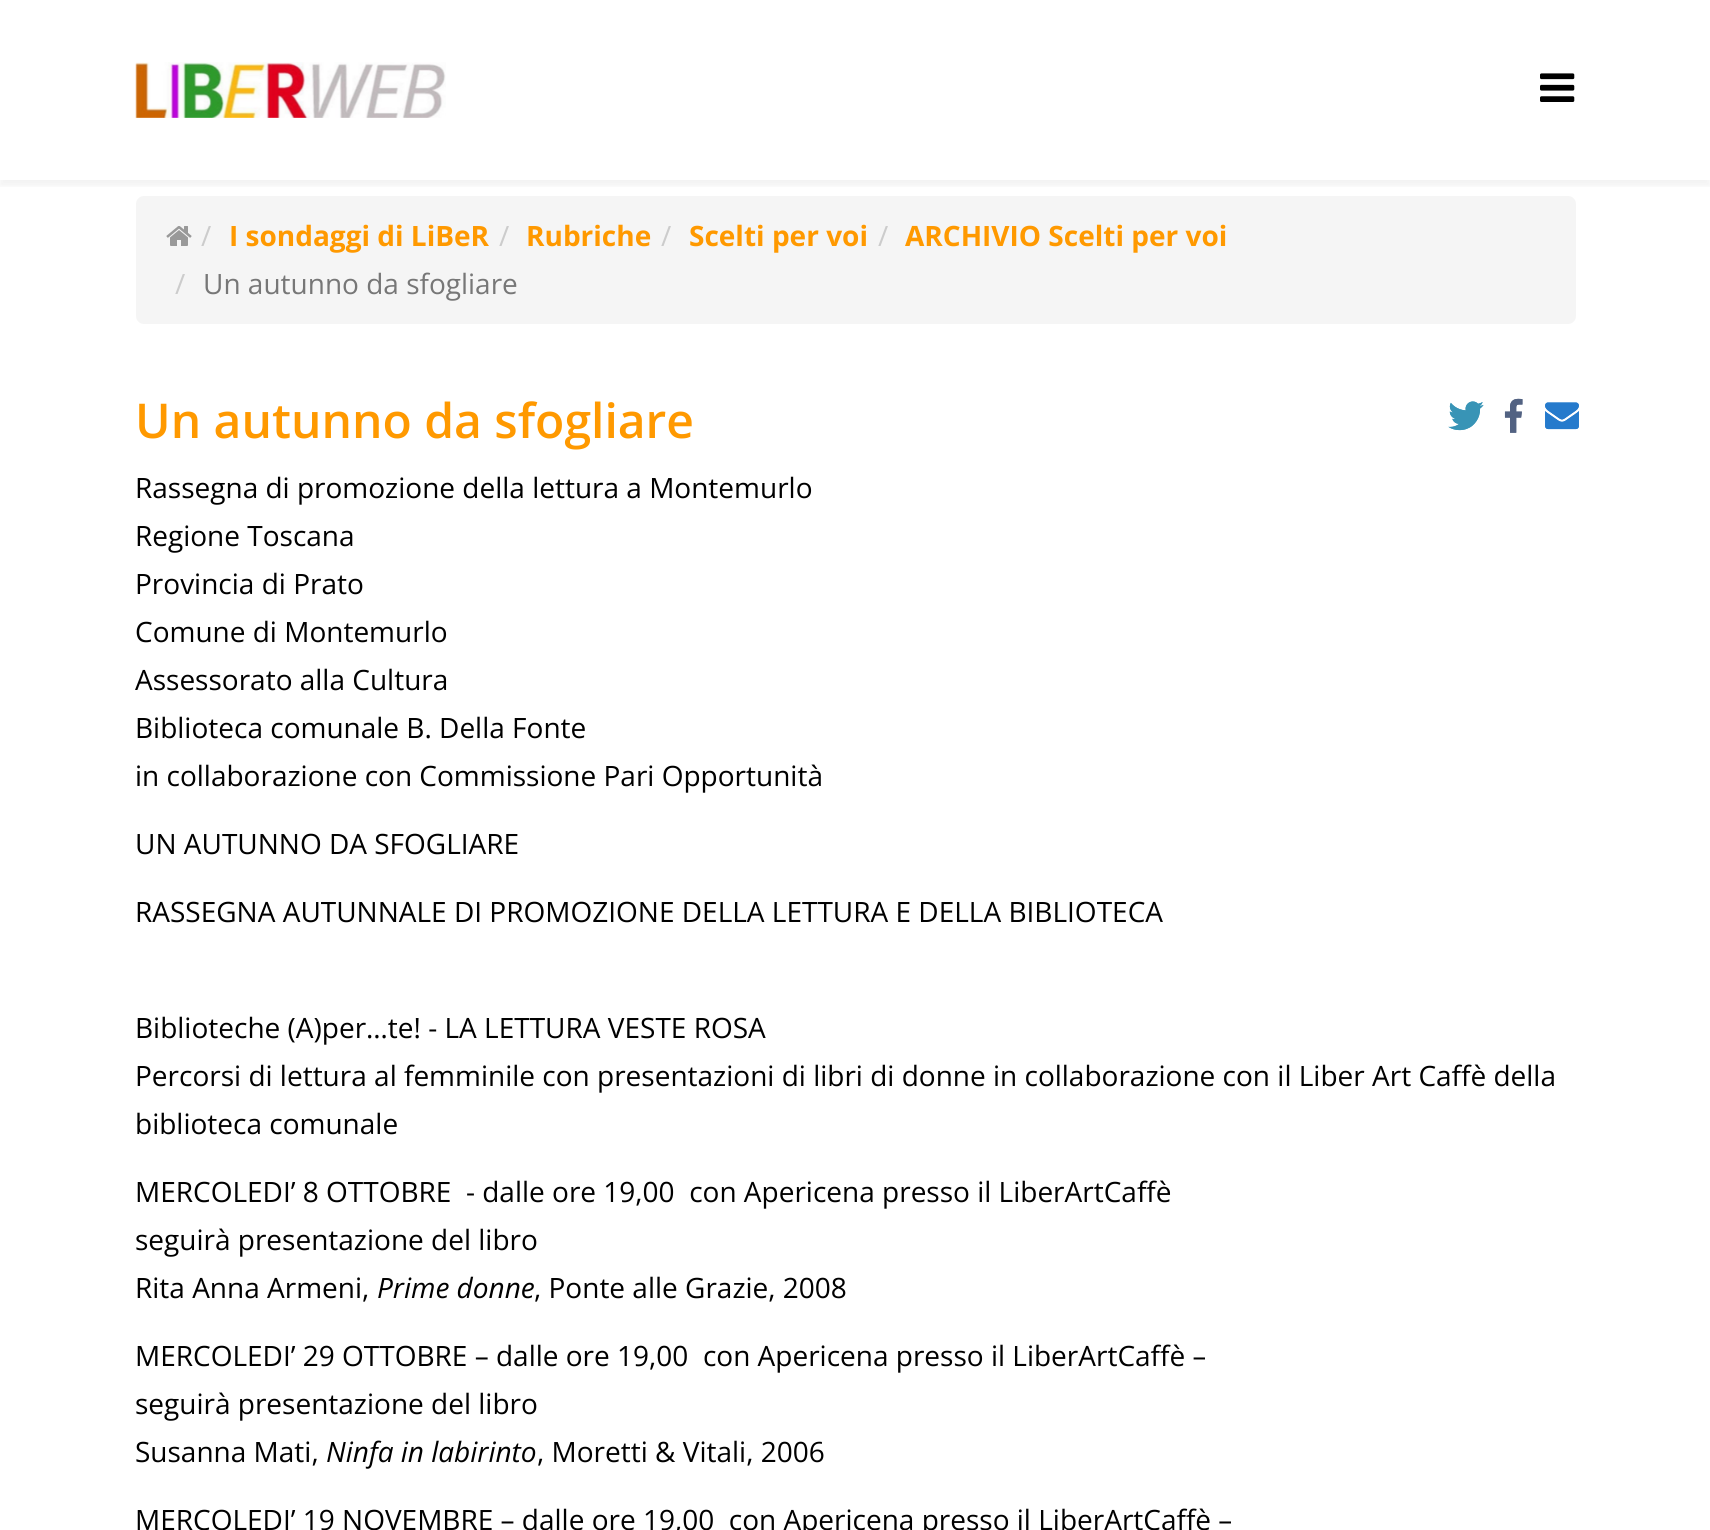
import math
import cairo



def rounded_rect(context, x, y, w, h, r):
    context.new_sub_path()
    for i, (u, v) in enumerate([(x + w - r, y + h - r), (x + r, y + h - r), (x + r, y + r), (x + w - r, y + r)]):
        context.arc(u, v, r, i * math.pi / 2, (i + 1) * math.pi / 2)
    context.close_path()


def draw_shadow(context, x, y, w, h, r, blur, alpha):
    context.push_group_with_content(cairo.Content.ALPHA)
    context.set_operator(cairo.Operator.SOURCE)
    for i in range(15, -16, -2):
        e = blur * i / 6
        if min(w, h) + 2 * e > 0:
            context.set_source_rgba(0, 0, 0, alpha * math.erfc((i - 1) / 8.5) / 2)
            rounded_rect(context, x - e, y - e, w + 2 * e, h + 2 * e, max(0, min(r + e + blur * .6, min(w, h) / 2 + e)))
            context.fill()
    context.mask(context.pop_group())


def draw_image(context, path, x, y, w, h):
    context.save()
    context.set_source_surface(cairo.ImageSurface.create_from_png(path), x, y)
    context.rectangle(x, y, w, h)
    context.fill()
    context.restore()


def draw(context):
    context.set_source_rgb(1, 1, 1)
    context.paint()
    context.save()
    context.rectangle(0, 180, 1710, 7)
    context.clip()
    context.set_source_rgb(0, 0, 0)
    draw_shadow(context, 0, 6, 1710, 180, 0, 3, 0.05)
    context.restore()
    draw_image(context, "images/1.png", 135, 62, 311, 56)
    draw_image(context, "images/2.png", 1540, 73, 35, 29)
    context.set_source_rgb(245 / 255, 245 / 255, 245 / 255)
    rounded_rect(context, 136, 196, 1440, 128, 8)
    context.fill()
    draw_image(context, "images/3.png", 166, 226, 26, 20)
    draw_image(context, "images/4.png", 1448, 401, 36, 30)
    draw_image(context, "images/5.png", 1504, 398, 19, 35)
    draw_image(context, "images/6.png", 1545, 402, 34, 28)
    context.set_source_rgba(1, 1, 1, 0.05)
    context.rectangle(1449, 401, 34, 29)
    context.fill()
    draw_image(context, "images/7.png", 1448, 401, 36, 30)
    draw_image(context, "images/8.png", 1504, 398, 19, 35)
    context.rectangle(1545, 402, 34, 27)
    context.fill()
    draw_image(context, "images/9.png", 1545, 402, 34, 28)
    context.select_font_face("Open Sans")
    context.set_font_size(28)
    context.set_source_rgb(204 / 255, 204 / 255, 204 / 255)
    context.move_to(201, 246)
    context.show_text("/")
    context.select_font_face("Open Sans", cairo.FontSlant.NORMAL, cairo.FontWeight.BOLD)
    context.set_source_rgb(1, 153 / 255, 0)
    context.move_to(229, 246)
    context.show_text("I sondaggi di LiBeR")
    context.select_font_face("Open Sans")
    context.set_source_rgb(204 / 255, 204 / 255, 204 / 255)
    context.move_to(499, 246)
    context.show_text("/")
    context.select_font_face("Open Sans", cairo.FontSlant.NORMAL, cairo.FontWeight.BOLD)
    context.set_source_rgb(1, 153 / 255, 0)
    context.move_to(526, 246)
    context.show_text("Rubriche")
    context.select_font_face("Open Sans")
    context.set_source_rgb(204 / 255, 204 / 255, 204 / 255)
    context.move_to(661, 246)
    context.show_text("/")
    context.select_font_face("Open Sans", cairo.FontSlant.NORMAL, cairo.FontWeight.BOLD)
    context.set_source_rgb(1, 153 / 255, 0)
    context.move_to(689, 246)
    context.show_text("Scelti per voi")
    context.select_font_face("Open Sans")
    context.set_source_rgb(204 / 255, 204 / 255, 204 / 255)
    context.move_to(878, 246)
    context.show_text("/")
    context.select_font_face("Open Sans", cairo.FontSlant.NORMAL, cairo.FontWeight.BOLD)
    context.set_source_rgb(1, 153 / 255, 0)
    context.move_to(905, 246)
    context.show_text("ARCHIVIO Scelti per voi")
    context.select_font_face("Open Sans")
    context.set_source_rgb(204 / 255, 204 / 255, 204 / 255)
    context.move_to(175, 294)
    context.show_text("/")
    context.set_source_rgb(119 / 255, 119 / 255, 119 / 255)
    context.move_to(203, 294)
    context.show_text("Un autunno da sfogliare")
    context.select_font_face("Open Sans SemiBold")
    context.set_font_size(48)
    context.set_source_rgb(1, 153 / 255, 0)
    context.move_to(135, 438)
    context.show_text("Un autunno da sfogliare")
    context.select_font_face("Open Sans")
    context.set_font_size(28)
    context.set_source_rgb(0, 0, 0)
    context.move_to(135, 498)
    context.show_text("Rassegna di promozione della lettura a Montemurlo")
    context.move_to(135, 546)
    context.show_text("Regione Toscana")
    context.move_to(135, 594)
    context.show_text("Provincia di Prato")
    context.move_to(135, 642)
    context.show_text("Comune di Montemurlo")
    context.move_to(135, 690)
    context.show_text("Assessorato alla Cultura")
    context.move_to(135, 738)
    context.show_text("Biblioteca comunale B. Della Fonte")
    context.move_to(135, 786)
    context.show_text("in collaborazione con Commissione Pari Opportunità")
    context.move_to(135, 854)
    context.show_text("UN AUTUNNO DA SFOGLIARE")
    context.move_to(135, 922)
    context.show_text("RASSEGNA AUTUNNALE DI PROMOZIONE DELLA LETTURA E DELLA BIBLIOTECA")
    context.move_to(135, 1038)
    context.show_text("Biblioteche (A)per…te! - LA LETTURA VESTE ROSA")
    context.move_to(135, 1086)
    context.show_text("Percorsi di lettura al femminile con presentazioni di libri di donne in collaborazione con il Liber Art Caffè della")
    context.move_to(135, 1134)
    context.show_text("biblioteca comunale")
    context.move_to(135, 1202)
    context.show_text("MERCOLEDI’ 8 OTTOBRE  - dalle ore 19,00  con Apericena presso il LiberArtCaffè")
    context.move_to(135, 1250)
    context.show_text("seguirà presentazione del libro")
    context.move_to(135, 1298)
    context.show_text("Rita Anna Armeni,")
    context.select_font_face("Open Sans", cairo.FontSlant.ITALIC)
    context.move_to(377, 1298)
    context.show_text("Prime donne")
    context.select_font_face("Open Sans")
    context.move_to(534, 1298)
    context.show_text(", Ponte alle Grazie, 2008")
    context.move_to(135, 1366)
    context.show_text("MERCOLEDI’ 29 OTTOBRE – dalle ore 19,00  con Apericena presso il LiberArtCaffè –")
    context.move_to(135, 1414)
    context.show_text("seguirà presentazione del libro")
    context.move_to(135, 1462)
    context.show_text("Susanna Mati,")
    context.select_font_face("Open Sans", cairo.FontSlant.ITALIC)
    context.move_to(326, 1462)
    context.show_text("Ninfa in labirinto")
    context.select_font_face("Open Sans")
    context.move_to(537, 1462)
    context.show_text(", Moretti & Vitali, 2006")
    context.move_to(135, 1530)
    context.show_text("MERCOLEDI’ 19 NOVEMBRE – dalle ore 19,00  con Apericena presso il LiberArtCaffè –")


surface = cairo.ImageSurface(cairo.Format.RGB24, 1710, 1530)
context = cairo.Context(surface)
options = cairo.FontOptions()
options.set_hint_metrics(cairo.HintMetrics.OFF)
options.set_hint_style(cairo.HintStyle.NONE)
context.set_font_options(options)
context.set_miter_limit(4)
draw(context)
surface.write_to_png("out.png")
